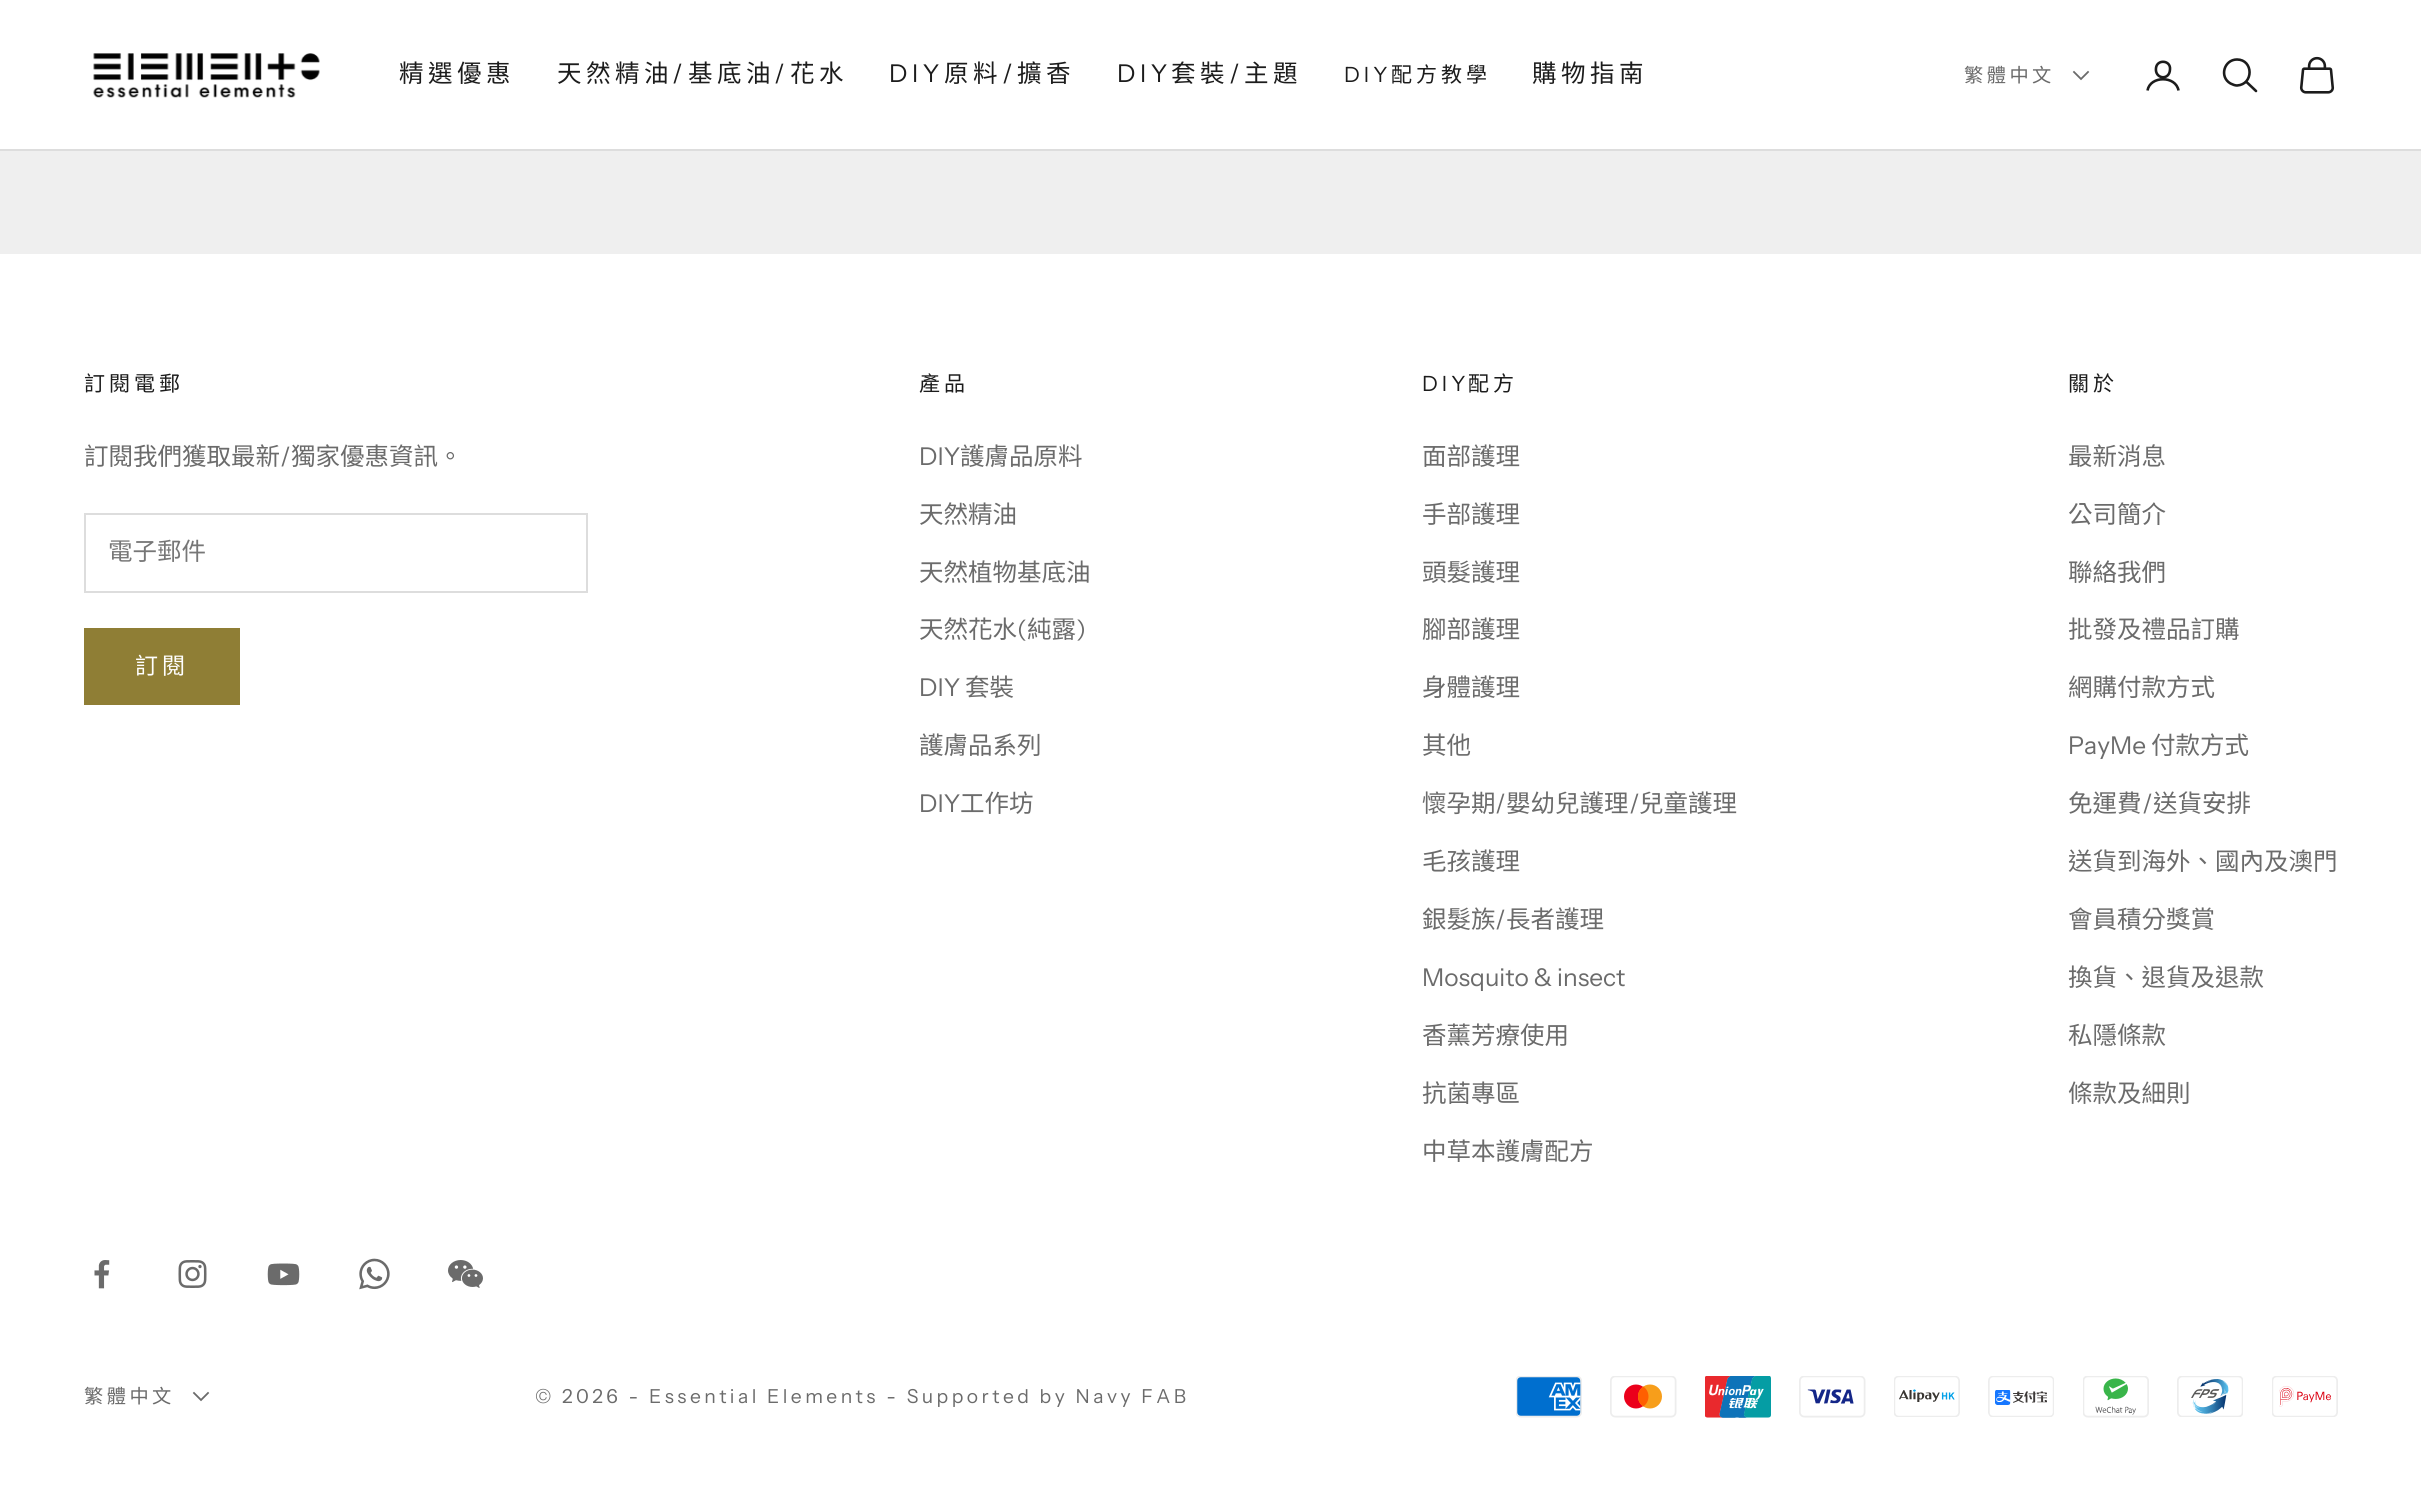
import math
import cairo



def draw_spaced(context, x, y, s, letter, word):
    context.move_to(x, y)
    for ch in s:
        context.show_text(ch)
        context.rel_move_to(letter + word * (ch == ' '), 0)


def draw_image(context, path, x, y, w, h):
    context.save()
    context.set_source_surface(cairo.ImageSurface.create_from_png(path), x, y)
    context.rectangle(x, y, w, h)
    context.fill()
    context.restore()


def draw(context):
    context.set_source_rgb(239 / 255, 239 / 255, 239 / 255)
    context.paint()
    context.set_source_rgb(1, 1, 1)
    context.rectangle(0, 0, 2421, 149)
    context.fill()
    context.set_source_rgb(221 / 255, 221 / 255, 221 / 255)
    context.rectangle(0, 149, 2421, 2)
    context.fill()
    draw_image(context, "images/1.png", 93, 53, 227, 45)
    context.new_path()
    context.move_to(2074, 72)
    context.line_to(2081, 79)
    context.line_to(2088, 72)
    context.set_source_rgb(107 / 255, 107 / 255, 107 / 255)
    context.set_line_width(1.8)
    context.set_line_cap(cairo.LineCap.SQUARE)
    context.stroke()
    context.new_path()
    context.move_to(2170, 69.5)
    context.curve_to(2169.5, 81, 2154.5, 79, 2156, 68)
    context.curve_to(2157, 59, 2171, 60, 2170, 69.5)
    context.close_path()
    context.set_source_rgb(28 / 255, 28 / 255, 28 / 255)
    context.set_line_width(2.6)
    context.set_line_cap(cairo.LineCap.ROUND)
    context.set_line_join(cairo.LineJoin.ROUND)
    context.stroke()
    context.new_path()
    context.move_to(2147.5, 90.5)
    context.curve_to(2150, 75.5, 2176, 75.5, 2178.5, 90.5)
    context.set_line_cap(cairo.LineCap.BUTT)
    context.set_line_join(cairo.LineJoin.MITER)
    context.stroke()
    context.new_path()
    context.move_to(2237, 59.5)
    context.curve_to(2224, 59.5, 2219, 77, 2230.5, 83.5)
    context.curve_to(2232.5, 84.5, 2235, 85.5, 2237, 85.5)
    context.curve_to(2254, 84.5, 2253.5, 59.5, 2237, 59.5)
    context.close_path()
    context.stroke()
    context.new_path()
    context.move_to(2246.5, 82)
    context.line_to(2256, 91)
    context.set_line_cap(cairo.LineCap.ROUND)
    context.stroke()
    draw_image(context, "images/2.png", 2299, 56, 36, 38)
    context.set_source_rgb(1, 1, 1)
    context.rectangle(0, 254, 2421, 1247)
    context.fill()
    context.rectangle(85, 514, 502, 78)
    context.set_source_rgb(221 / 255, 221 / 255, 221 / 255)
    context.set_line_width(2)
    context.set_line_cap(cairo.LineCap.BUTT)
    context.stroke()
    context.set_source_rgb(143 / 255, 126 / 255, 53 / 255)
    context.rectangle(85, 629, 154, 75)
    context.fill_preserve()
    context.stroke()
    draw_image(context, "images/3.png", 94, 1260, 16, 29)
    draw_image(context, "images/4.png", 178, 1260, 29, 28)
    draw_image(context, "images/5.png", 267, 1263, 33, 23)
    draw_image(context, "images/6.png", 359, 1258, 31, 32)
    draw_image(context, "images/7.png", 448, 1260, 35, 28)
    context.new_path()
    context.move_to(194, 1393)
    context.line_to(201, 1400)
    context.line_to(208, 1393)
    context.set_source_rgb(107 / 255, 107 / 255, 107 / 255)
    context.set_line_width(1.8)
    context.set_line_cap(cairo.LineCap.SQUARE)
    context.stroke()
    draw_image(context, "images/8.png", 1516, 1376, 66, 42)
    draw_image(context, "images/9.png", 1610, 1376, 67, 42)
    draw_image(context, "images/10.png", 1705, 1376, 66, 42)
    draw_image(context, "images/11.png", 1799, 1376, 67, 42)
    draw_image(context, "images/12.png", 1894, 1376, 66, 41)
    draw_image(context, "images/13.png", 1988, 1376, 66, 41)
    draw_image(context, "images/14.png", 2083, 1376, 66, 42)
    draw_image(context, "images/15.png", 2177, 1376, 66, 41)
    draw_image(context, "images/16.png", 2272, 1376, 66, 41)
    context.select_font_face("Noto Sans CJK TC")
    context.set_font_size(24.5)
    context.set_source_rgb(28 / 255, 28 / 255, 28 / 255)
    draw_spaced(context, 399, 82, "精選優惠", 4.5, 0)
    draw_spaced(context, 557, 82, "天然精油", 4.5, 0)
    context.select_font_face("Instrument Sans")
    draw_spaced(context, 672, 82, "/", 4.5, 0)
    context.select_font_face("Noto Sans CJK TC")
    draw_spaced(context, 688, 82, "基底油", 4.5, 0)
    context.select_font_face("Instrument Sans")
    draw_spaced(context, 774, 82, "/", 4.5, 0)
    context.select_font_face("Noto Sans CJK TC")
    draw_spaced(context, 790, 82, "花水", 4.5, 0)
    context.select_font_face("Instrument Sans")
    draw_spaced(context, 889, 82, "DIY", 4.5, 0)
    context.select_font_face("Noto Sans CJK TC")
    draw_spaced(context, 944, 82, "原料", 4.5, 0)
    context.select_font_face("Instrument Sans")
    draw_spaced(context, 1002, 82, "/", 4.5, 0)
    context.select_font_face("Noto Sans CJK TC")
    draw_spaced(context, 1017, 82, "擴香", 4.5, 0)
    context.select_font_face("Instrument Sans")
    draw_spaced(context, 1117, 82, "DIY", 4.5, 0)
    context.select_font_face("Noto Sans CJK TC")
    draw_spaced(context, 1171, 82, "套裝", 4.5, 0)
    context.select_font_face("Instrument Sans")
    draw_spaced(context, 1229, 82, "/", 4.5, 0)
    context.select_font_face("Noto Sans CJK TC")
    draw_spaced(context, 1244, 82, "主題", 4.5, 0)
    context.select_font_face("Instrument Sans")
    context.set_font_size(21)
    draw_spaced(context, 1344, 82, "DIY", 4, 0)
    context.select_font_face("Noto Sans CJK TC")
    draw_spaced(context, 1391, 82, "配方教學", 4, 0)
    context.set_font_size(24.5)
    draw_spaced(context, 1532, 82, "購物指南", 4.5, 0)
    context.set_font_size(19.25)
    context.set_source_rgb(107 / 255, 107 / 255, 107 / 255)
    draw_spaced(context, 1964, 82, "繁體中文", 3.45, 0)
    context.set_font_size(21)
    context.set_source_rgb(28 / 255, 28 / 255, 28 / 255)
    draw_spaced(context, 84, 391, "訂閱電郵", 4, 0)
    context.set_font_size(24.5)
    context.set_source_rgb(107 / 255, 107 / 255, 107 / 255)
    context.move_to(84, 465)
    context.show_text("訂閱我們獲取最新")
    context.select_font_face("Instrument Sans")
    context.move_to(280, 465)
    context.show_text("/")
    context.select_font_face("Noto Sans CJK TC")
    context.move_to(291, 465)
    context.show_text("獨家優惠資訊。")
    context.set_source_rgb(119 / 255, 119 / 255, 119 / 255)
    context.move_to(108, 560)
    context.show_text("電子郵件")
    context.set_font_size(23)
    context.set_source_rgb(1, 1, 1)
    draw_spaced(context, 135, 674, "訂閱", 4, 0)
    context.set_font_size(21)
    context.set_source_rgb(28 / 255, 28 / 255, 28 / 255)
    draw_spaced(context, 919, 391, "產品", 4, 0)
    context.select_font_face("Instrument Sans")
    context.set_font_size(24.5)
    context.set_source_rgb(107 / 255, 107 / 255, 107 / 255)
    context.move_to(919, 465)
    context.show_text("DIY")
    context.select_font_face("Noto Sans CJK TC")
    context.move_to(960, 465)
    context.show_text("護膚品原料")
    context.move_to(919, 523)
    context.show_text("天然精油")
    context.move_to(919, 581)
    context.show_text("天然植物基底油")
    context.move_to(919, 638)
    context.show_text("天然花水")
    context.select_font_face("Instrument Sans")
    context.move_to(1017, 638)
    context.show_text("(")
    context.select_font_face("Noto Sans CJK TC")
    context.move_to(1027, 638)
    context.show_text("純露")
    context.select_font_face("Instrument Sans")
    context.move_to(1076, 638)
    context.show_text(")")
    context.move_to(919, 696)
    context.show_text("DIY")
    context.select_font_face("Noto Sans CJK TC")
    context.move_to(965, 696)
    context.show_text("套裝")
    context.move_to(919, 754)
    context.show_text("護膚品系列")
    context.select_font_face("Instrument Sans")
    context.move_to(919, 812)
    context.show_text("DIY")
    context.select_font_face("Noto Sans CJK TC")
    context.move_to(960, 812)
    context.show_text("工作坊")
    context.select_font_face("Instrument Sans")
    context.set_font_size(21)
    context.set_source_rgb(28 / 255, 28 / 255, 28 / 255)
    draw_spaced(context, 1422, 391, "DIY", 4, 0)
    context.select_font_face("Noto Sans CJK TC")
    draw_spaced(context, 1468, 391, "配方", 4, 0)
    context.set_font_size(24.5)
    context.set_source_rgb(107 / 255, 107 / 255, 107 / 255)
    context.move_to(1422, 465)
    context.show_text("面部護理")
    context.move_to(1422, 523)
    context.show_text("手部護理")
    context.move_to(1422, 581)
    context.show_text("頭髮護理")
    context.move_to(1422, 638)
    context.show_text("腳部護理")
    context.move_to(1422, 696)
    context.show_text("身體護理")
    context.move_to(1422, 754)
    context.show_text("其他")
    context.move_to(1422, 812)
    context.show_text("懷孕期")
    context.select_font_face("Instrument Sans")
    context.move_to(1495, 812)
    context.show_text("/")
    context.select_font_face("Noto Sans CJK TC")
    context.move_to(1506, 812)
    context.show_text("嬰幼兒護理")
    context.select_font_face("Instrument Sans")
    context.move_to(1629, 812)
    context.show_text("/")
    context.select_font_face("Noto Sans CJK TC")
    context.move_to(1639, 812)
    context.show_text("兒童護理")
    context.move_to(1422, 870)
    context.show_text("毛孩護理")
    context.move_to(1422, 928)
    context.show_text("銀髮族")
    context.select_font_face("Instrument Sans")
    context.move_to(1495, 928)
    context.show_text("/")
    context.select_font_face("Noto Sans CJK TC")
    context.move_to(1506, 928)
    context.show_text("長者護理")
    context.select_font_face("Instrument Sans")
    context.move_to(1422, 986)
    context.show_text("Mosquito & insect")
    context.select_font_face("Noto Sans CJK TC")
    context.move_to(1422, 1044)
    context.show_text("香薰芳療使用")
    context.move_to(1422, 1102)
    context.show_text("抗菌專區")
    context.move_to(1422, 1160)
    context.show_text("中草本護膚配方")
    context.set_font_size(21)
    context.set_source_rgb(28 / 255, 28 / 255, 28 / 255)
    draw_spaced(context, 2068, 391, "關於", 4, 0)
    context.set_font_size(24.5)
    context.set_source_rgb(107 / 255, 107 / 255, 107 / 255)
    context.move_to(2068, 465)
    context.show_text("最新消息")
    context.move_to(2068, 523)
    context.show_text("公司簡介")
    context.move_to(2068, 581)
    context.show_text("聯絡我們")
    context.move_to(2068, 638)
    context.show_text("批發及禮品訂購")
    context.move_to(2068, 696)
    context.show_text("網購付款方式")
    context.select_font_face("Instrument Sans")
    context.move_to(2068, 754)
    context.show_text("PayMe")
    context.select_font_face("Noto Sans CJK TC")
    context.move_to(2151, 754)
    context.show_text("付款方式")
    context.move_to(2068, 812)
    context.show_text("免運費")
    context.select_font_face("Instrument Sans")
    context.move_to(2142, 812)
    context.show_text("/")
    context.select_font_face("Noto Sans CJK TC")
    context.move_to(2153, 812)
    context.show_text("送貨安排")
    context.move_to(2068, 870)
    context.show_text("送貨到海外、國內及澳門")
    context.move_to(2068, 928)
    context.show_text("會員積分獎賞")
    context.move_to(2068, 986)
    context.show_text("換貨、退貨及退款")
    context.move_to(2068, 1044)
    context.show_text("私隱條款")
    context.move_to(2068, 1102)
    context.show_text("條款及細則")
    context.set_font_size(19.25)
    draw_spaced(context, 84, 1403, "繁體中文", 3.45, 0)
    context.select_font_face("Instrument Sans")
    draw_spaced(context, 535, 1403, "© 2026 - Essential Elements - Supported by Navy FAB", 3.45, 0)


surface = cairo.ImageSurface(cairo.Format.RGB24, 2421, 1501)
context = cairo.Context(surface)
options = cairo.FontOptions()
options.set_hint_metrics(cairo.HintMetrics.OFF)
options.set_hint_style(cairo.HintStyle.NONE)
context.set_font_options(options)
context.set_miter_limit(4)
draw(context)
surface.write_to_png("out.png")
